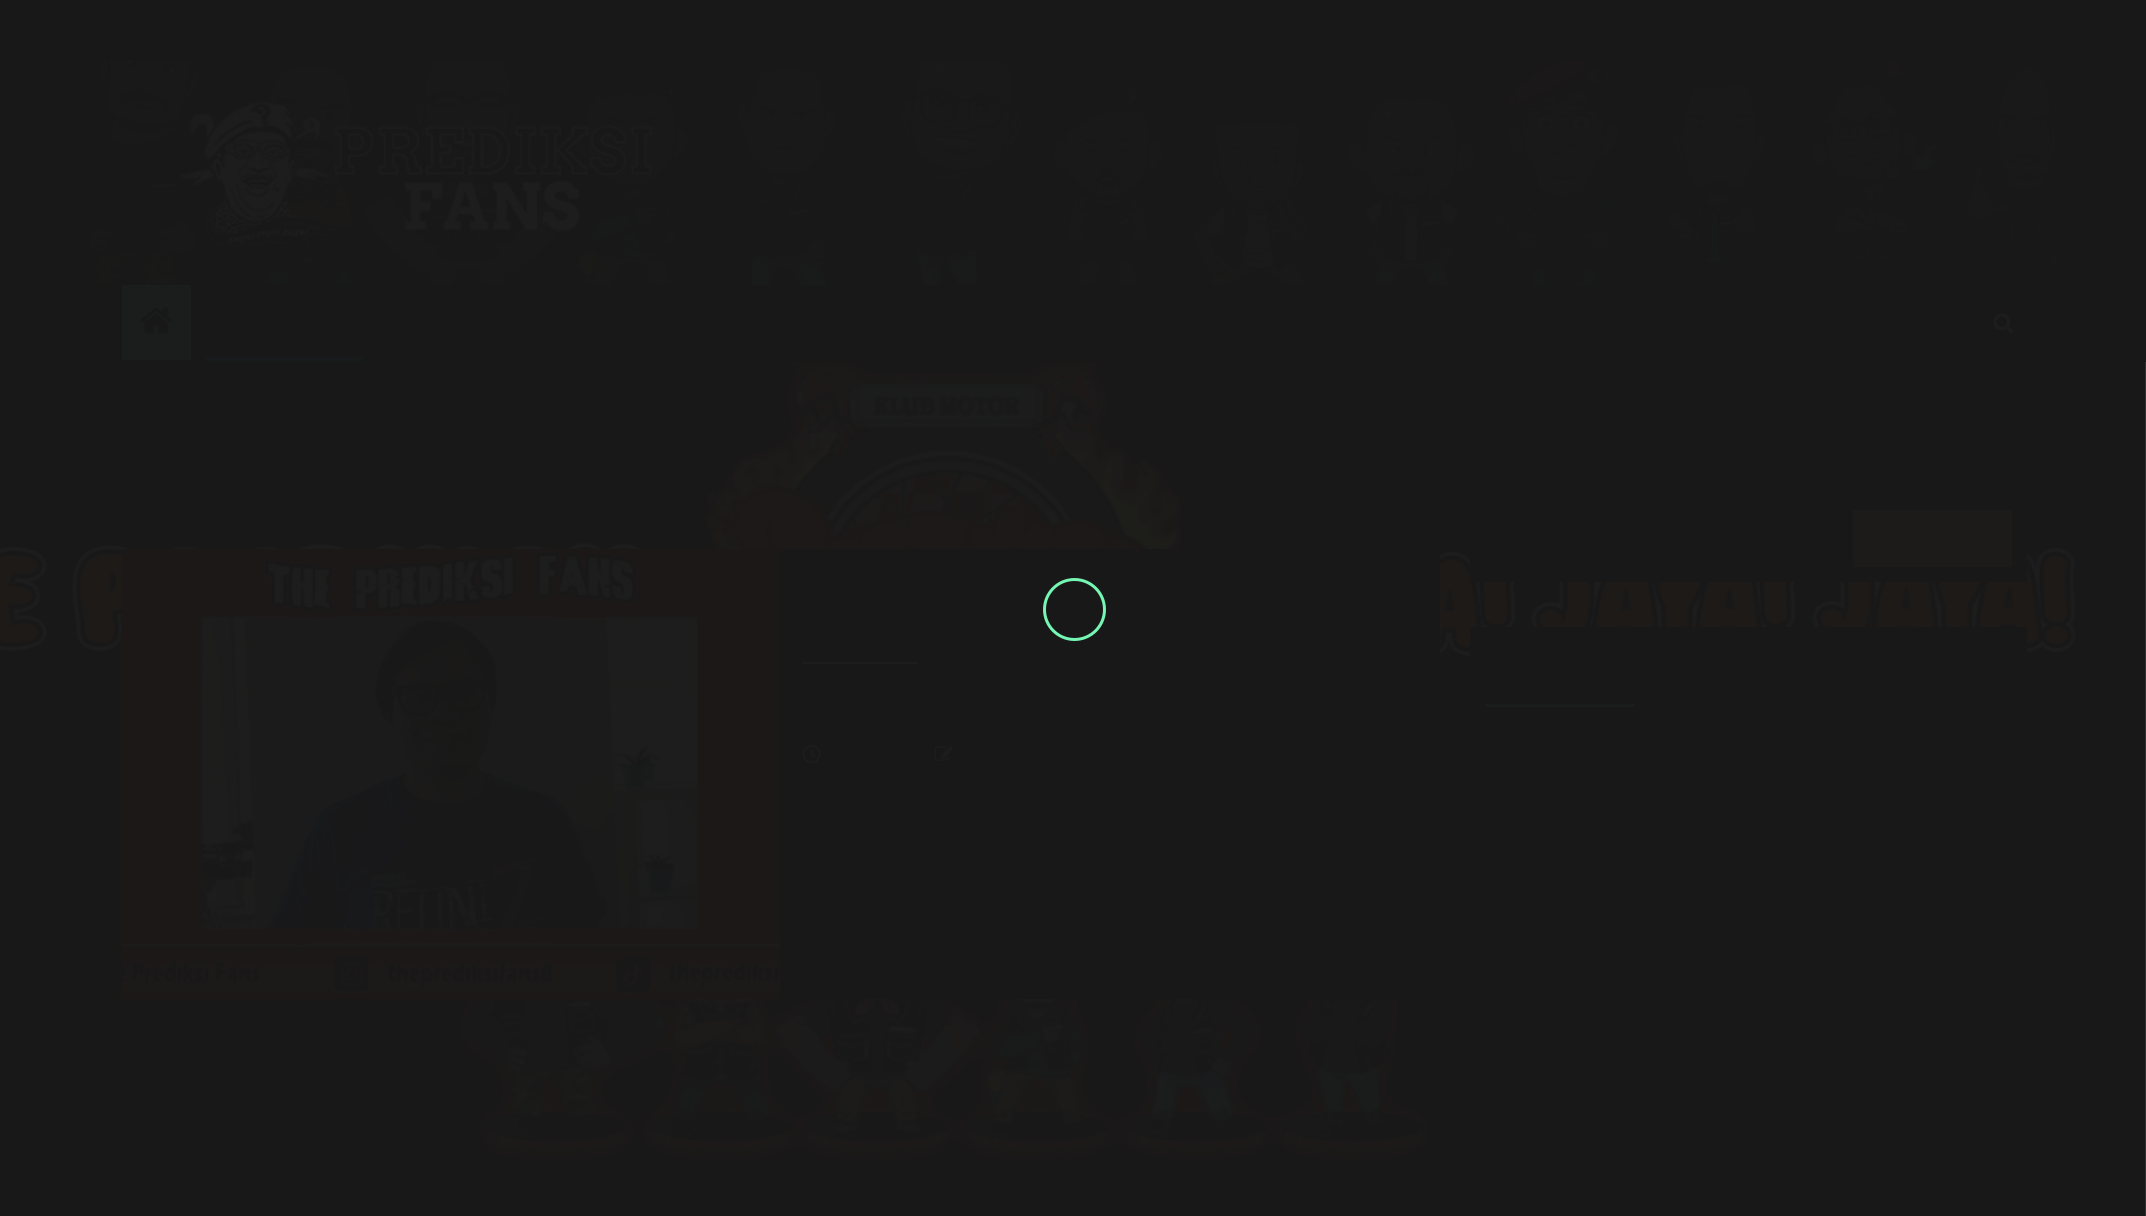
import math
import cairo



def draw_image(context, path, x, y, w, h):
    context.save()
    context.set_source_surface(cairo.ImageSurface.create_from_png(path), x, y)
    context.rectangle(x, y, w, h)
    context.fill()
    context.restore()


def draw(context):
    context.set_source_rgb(1, 1, 1)
    context.paint()
    draw_image(context, "images/1.png", 0, 362, 2146, 854)
    context.set_source_rgb(24 / 255, 24 / 255, 24 / 255)
    context.rectangle(0, 0, 2146, 60)
    context.fill()
    draw_image(context, "images/2.png", 0, 60, 2146, 225)
    draw_image(context, "images/3.png", 178, 99, 475, 149)
    context.rectangle(0, 285, 2146, 77)
    context.fill()
    context.set_source_rgb(26 / 255, 29 / 255, 27 / 255)
    context.rectangle(122, 285, 69, 75)
    context.fill()
    draw_image(context, "images/4.png", 140, 307, 33, 27)
    context.set_source_rgb(24 / 255, 27 / 255, 28 / 255)
    context.rectangle(206, 357, 156, 5)
    context.fill()
    draw_image(context, "images/5.png", 1993, 313, 20, 20)
    context.set_source_rgb(24 / 255, 24 / 255, 24 / 255)
    context.rectangle(780, 549, 660, 450)
    context.fill()
    draw_image(context, "images/6.png", 121, 549, 659, 450)
    context.set_source_rgb(29 / 255, 29 / 255, 29 / 255)
    context.rectangle(803, 662, 115, 2)
    context.fill()
    draw_image(context, "images/7.png", 802, 745, 19, 19)
    draw_image(context, "images/8.png", 934, 746, 19, 15)
    context.set_source_rgb(24 / 255, 24 / 255, 24 / 255)
    context.rectangle(1470, 547, 557, 35)
    context.fill()
    context.set_source_rgb(29 / 255, 27 / 255, 25 / 255)
    context.rectangle(1853, 510, 159, 57)
    context.fill()
    context.set_source_rgb(24 / 255, 24 / 255, 24 / 255)
    context.rectangle(1470, 627, 557, 28)
    context.fill()
    context.set_source_rgb(26 / 255, 29 / 255, 27 / 255)
    context.rectangle(1485, 704, 150, 3)
    context.fill()
    context.arc(1074.5, 609.5, 30, 0, 2 * math.pi)
    context.set_source_rgb(118 / 255, 246 / 255, 180 / 255)
    context.set_line_width(3)
    context.stroke()


surface = cairo.ImageSurface(cairo.Format.RGB24, 2146, 1216)
context = cairo.Context(surface)
options = cairo.FontOptions()
options.set_hint_metrics(cairo.HintMetrics.OFF)
options.set_hint_style(cairo.HintStyle.NONE)
context.set_font_options(options)
context.set_miter_limit(4)
draw(context)
surface.write_to_png("out.png")
